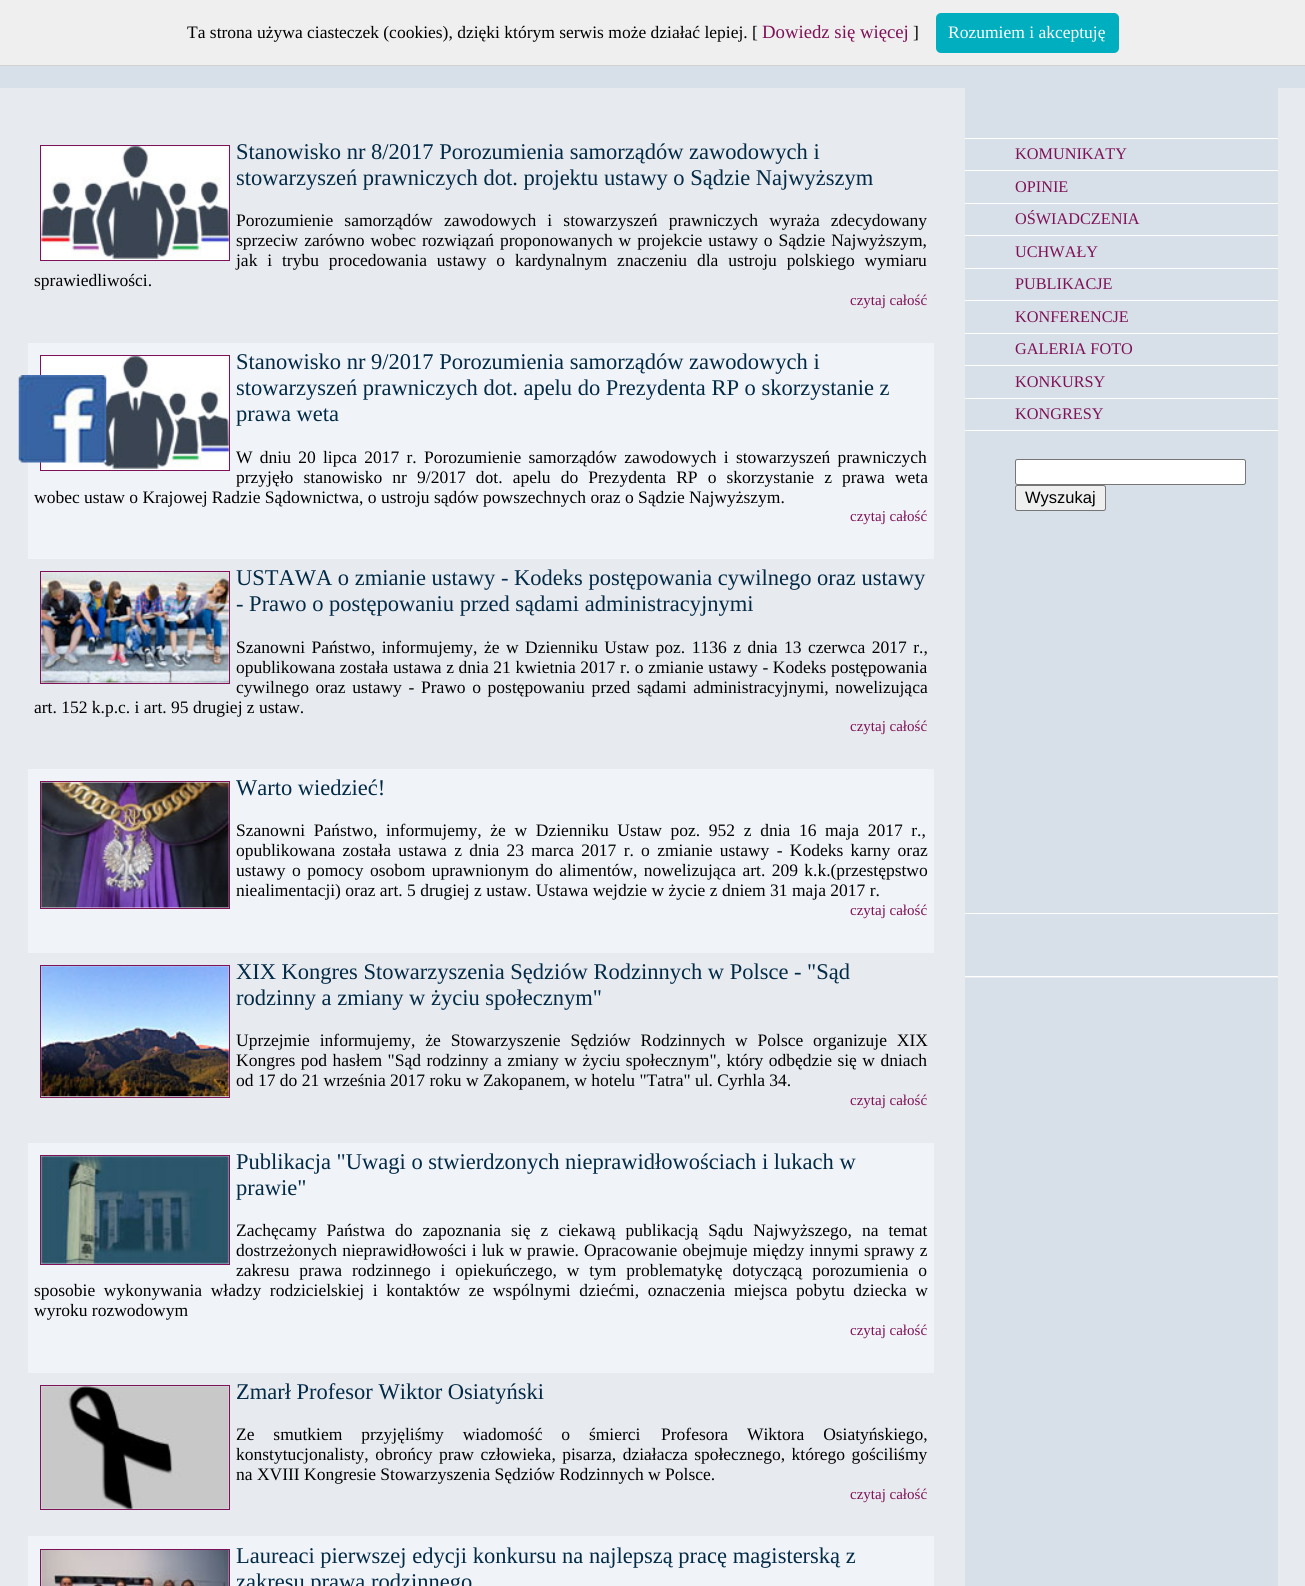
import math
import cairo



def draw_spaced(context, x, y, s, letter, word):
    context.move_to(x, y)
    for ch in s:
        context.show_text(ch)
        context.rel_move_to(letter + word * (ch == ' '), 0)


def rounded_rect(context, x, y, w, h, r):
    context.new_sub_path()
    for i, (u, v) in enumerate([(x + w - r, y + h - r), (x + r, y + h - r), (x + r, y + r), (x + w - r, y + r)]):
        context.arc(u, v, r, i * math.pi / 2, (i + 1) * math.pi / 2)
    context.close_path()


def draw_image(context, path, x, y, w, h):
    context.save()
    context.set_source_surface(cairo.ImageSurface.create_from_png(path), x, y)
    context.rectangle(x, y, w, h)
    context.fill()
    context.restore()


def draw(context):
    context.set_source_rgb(215 / 255, 223 / 255, 232 / 255)
    context.paint()
    context.set_source_rgb(239 / 255, 239 / 255, 239 / 255)
    context.rectangle(0, 0, 1305, 65)
    context.fill()
    context.set_source_rgb(211 / 255, 208 / 255, 208 / 255)
    context.rectangle(0, 65, 1305, 1)
    context.fill()
    context.set_source_rgb(0, 175 / 255, 191 / 255)
    rounded_rect(context, 936, 13, 183, 40, 5)
    context.fill()
    context.set_source_rgb(231 / 255, 234 / 255, 238 / 255)
    context.rectangle(0, 88, 1305, 1498)
    context.fill()
    context.rectangle(40.5, 145.5, 189, 115)
    context.set_source_rgb(126 / 255, 17 / 255, 87 / 255)
    context.set_line_width(1)
    context.stroke()
    draw_image(context, "images/1.png", 41, 146, 188, 114)
    context.set_source_rgb(240 / 255, 243 / 255, 247 / 255)
    context.rectangle(28, 343, 906, 216)
    context.fill()
    context.rectangle(40.5, 355.5, 189, 115)
    context.set_source_rgb(126 / 255, 17 / 255, 87 / 255)
    context.stroke()
    draw_image(context, "images/2.png", 41, 356, 188, 114)
    context.rectangle(40.5, 571.5, 189, 112)
    context.stroke()
    draw_image(context, "images/3.png", 41, 572, 188, 111)
    context.set_source_rgb(240 / 255, 243 / 255, 247 / 255)
    context.rectangle(28, 769, 906, 184)
    context.fill()
    context.rectangle(40.5, 781.5, 189, 127)
    context.set_source_rgb(126 / 255, 17 / 255, 87 / 255)
    context.stroke()
    draw_image(context, "images/4.png", 41, 782, 188, 126)
    context.rectangle(40.5, 965.5, 189, 132)
    context.stroke()
    draw_image(context, "images/5.png", 41, 966, 188, 131)
    context.set_source_rgb(240 / 255, 243 / 255, 247 / 255)
    context.rectangle(28, 1143, 906, 230)
    context.fill()
    context.rectangle(40.5, 1155.5, 189, 109)
    context.set_source_rgb(126 / 255, 17 / 255, 87 / 255)
    context.stroke()
    draw_image(context, "images/6.png", 41, 1156, 188, 108)
    context.rectangle(40.5, 1385.5, 189, 124)
    context.stroke()
    draw_image(context, "images/7.png", 41, 1386, 188, 123)
    context.set_source_rgb(240 / 255, 243 / 255, 247 / 255)
    context.rectangle(28, 1536, 906, 50)
    context.fill()
    context.rectangle(40.5, 1549.5, 189, 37)
    context.set_source_rgb(126 / 255, 17 / 255, 87 / 255)
    context.stroke()
    draw_image(context, "images/8.png", 41, 1550, 188, 36)
    context.set_source_rgb(215 / 255, 223 / 255, 232 / 255)
    context.rectangle(965, 88, 313, 50)
    context.fill()
    context.set_source_rgb(1, 1, 1)
    context.rectangle(965, 138, 313, 1)
    context.fill()
    context.set_source_rgb(215 / 255, 223 / 255, 232 / 255)
    context.rectangle(965, 139, 313, 31)
    context.fill()
    context.set_source_rgb(1, 1, 1)
    context.rectangle(965, 170, 313, 1)
    context.fill()
    context.set_source_rgb(215 / 255, 223 / 255, 232 / 255)
    context.rectangle(965, 171, 313, 32)
    context.fill()
    context.set_source_rgb(1, 1, 1)
    context.rectangle(965, 203, 313, 1)
    context.fill()
    context.set_source_rgb(215 / 255, 223 / 255, 232 / 255)
    context.rectangle(965, 204, 313, 31)
    context.fill()
    context.set_source_rgb(1, 1, 1)
    context.rectangle(965, 235, 313, 1)
    context.fill()
    context.set_source_rgb(215 / 255, 223 / 255, 232 / 255)
    context.rectangle(965, 236, 313, 32)
    context.fill()
    context.set_source_rgb(1, 1, 1)
    context.rectangle(965, 268, 313, 1)
    context.fill()
    context.set_source_rgb(215 / 255, 223 / 255, 232 / 255)
    context.rectangle(965, 269, 313, 31)
    context.fill()
    context.set_source_rgb(1, 1, 1)
    context.rectangle(965, 300, 313, 1)
    context.fill()
    context.set_source_rgb(215 / 255, 223 / 255, 232 / 255)
    context.rectangle(965, 301, 313, 32)
    context.fill()
    context.set_source_rgb(1, 1, 1)
    context.rectangle(965, 333, 313, 1)
    context.fill()
    context.set_source_rgb(215 / 255, 223 / 255, 232 / 255)
    context.rectangle(965, 334, 313, 31)
    context.fill()
    context.set_source_rgb(1, 1, 1)
    context.rectangle(965, 365, 313, 1)
    context.fill()
    context.set_source_rgb(215 / 255, 223 / 255, 232 / 255)
    context.rectangle(965, 366, 313, 32)
    context.fill()
    context.set_source_rgb(1, 1, 1)
    context.rectangle(965, 398, 313, 1)
    context.fill()
    context.set_source_rgb(215 / 255, 223 / 255, 232 / 255)
    context.rectangle(965, 399, 313, 31)
    context.fill()
    context.set_source_rgb(1, 1, 1)
    context.rectangle(965, 430, 313, 1)
    context.fill()
    context.set_source_rgb(215 / 255, 223 / 255, 232 / 255)
    context.rectangle(965, 431, 313, 482)
    context.fill()
    context.set_source_rgb(1, 1, 1)
    rounded_rect(context, 1015.5, 459.5, 230, 25, 2)
    context.fill_preserve()
    context.set_source_rgb(118 / 255, 118 / 255, 118 / 255)
    context.stroke()
    context.set_source_rgb(239 / 255, 239 / 255, 239 / 255)
    rounded_rect(context, 1015.5, 485.5, 90, 25, 2)
    context.fill_preserve()
    context.set_source_rgb(118 / 255, 118 / 255, 118 / 255)
    context.stroke()
    context.set_source_rgb(1, 1, 1)
    context.rectangle(965, 913, 313, 1)
    context.fill()
    context.set_source_rgb(215 / 255, 223 / 255, 232 / 255)
    context.rectangle(965, 914, 313, 62)
    context.fill()
    context.set_source_rgb(1, 1, 1)
    context.rectangle(965, 976, 313, 1)
    context.fill()
    context.set_source_rgb(215 / 255, 223 / 255, 232 / 255)
    context.rectangle(965, 978, 313, 608)
    context.fill()
    draw_image(context, "images/9.png", 18, 375, 89, 88)
    context.select_font_face("Liberation Serif")
    context.set_font_size(17.5)
    context.set_source_rgb(0, 0, 0)
    context.move_to(187, 38)
    context.show_text("Ta strona używa ciasteczek (cookies), dzięki którym serwis może działać lepiej. [")
    context.set_font_size(18.75)
    context.set_source_rgb(126 / 255, 17 / 255, 87 / 255)
    context.move_to(762, 38)
    context.show_text("Dowiedz się więcej")
    context.set_font_size(17.5)
    context.set_source_rgb(0, 0, 0)
    context.move_to(913, 38)
    context.show_text("]")
    context.set_source_rgb(1, 1, 1)
    context.move_to(948, 38)
    context.show_text("Rozumiem i akceptuję")
    context.set_font_size(22.5)
    context.set_source_rgb(2 / 255, 42 / 255, 70 / 255)
    context.move_to(236, 159)
    context.show_text("Stanowisko nr 8/2017 Porozumienia samorządów zawodowych i")
    context.move_to(236, 185)
    context.show_text("stowarzyszeń prawniczych dot. projektu ustawy o Sądzie Najwyższym")
    context.set_font_size(17.5)
    context.set_source_rgb(0, 0, 0)
    draw_spaced(context, 236, 226, "Porozumienie samorządów zawodowych i stowarzyszeń prawniczych wyraża zdecydowany", 0, 6.75)
    draw_spaced(context, 236, 246, "sprzeciw zarówno wobec rozwiązań proponowanych w projekcie ustawy o Sądzie Najwyższym,", 0, 1.6)
    draw_spaced(context, 236, 266, "jak i trybu procedowania ustawy o kardynalnym znaczeniu dla ustroju polskiego wymiaru", 0, 5.5)
    context.move_to(34, 286)
    context.show_text("sprawiedliwości.")
    context.set_font_size(15)
    context.set_source_rgb(126 / 255, 17 / 255, 87 / 255)
    context.move_to(850, 305)
    context.show_text("czytaj całość")
    context.set_font_size(22.5)
    context.set_source_rgb(2 / 255, 42 / 255, 70 / 255)
    context.move_to(236, 369)
    context.show_text("Stanowisko nr 9/2017 Porozumienia samorządów zawodowych i")
    context.move_to(236, 395)
    context.show_text("stowarzyszeń prawniczych dot. apelu do Prezydenta RP o skorzystanie z")
    context.move_to(236, 421)
    context.show_text("prawa weta")
    context.set_font_size(17.5)
    context.set_source_rgb(0, 0, 0)
    draw_spaced(context, 236, 463, "W dniu 20 lipca 2017 r. Porozumienie samorządów zawodowych i stowarzyszeń prawniczych", 0, 2.9)
    draw_spaced(context, 236, 483, "przyjęło stanowisko nr 9/2017 dot. apelu do Prezydenta RP o skorzystanie z prawa weta", 0, 5.75)
    context.move_to(34, 503)
    context.show_text("wobec ustaw o Krajowej Radzie Sądownictwa, o ustroju sądów powszechnych oraz o Sądzie Najwyższym.")
    context.set_font_size(15)
    context.set_source_rgb(126 / 255, 17 / 255, 87 / 255)
    context.move_to(850, 521)
    context.show_text("czytaj całość")
    context.set_font_size(22.5)
    context.set_source_rgb(2 / 255, 42 / 255, 70 / 255)
    context.move_to(236, 585)
    context.show_text("USTAWA o zmianie ustawy - Kodeks postępowania cywilnego oraz ustawy")
    context.move_to(236, 611)
    context.show_text("- Prawo o postępowaniu przed sądami administracyjnymi")
    context.set_font_size(17.5)
    context.set_source_rgb(0, 0, 0)
    draw_spaced(context, 236, 653, "Szanowni Państwo, informujemy, że w Dzienniku Ustaw poz. 1136 z dnia 13 czerwca 2017 r.,", 0, 2.1)
    draw_spaced(context, 236, 673, "opublikowana została ustawa z dnia 21 kwietnia 2017 r. o zmianie ustawy - Kodeks postępowania", 0, 0.25)
    draw_spaced(context, 236, 693, "cywilnego oraz ustawy - Prawo o postępowaniu przed sądami administracyjnymi, nowelizująca", 0, 2.25)
    context.move_to(34, 713)
    context.show_text("art. 152 k.p.c. i art. 95 drugiej z ustaw.")
    context.set_font_size(15)
    context.set_source_rgb(126 / 255, 17 / 255, 87 / 255)
    context.move_to(850, 731)
    context.show_text("czytaj całość")
    context.set_font_size(22.5)
    context.set_source_rgb(2 / 255, 42 / 255, 70 / 255)
    context.move_to(236, 795)
    context.show_text("Warto wiedzieć!")
    context.set_font_size(17.5)
    context.set_source_rgb(0, 0, 0)
    draw_spaced(context, 236, 836, "Szanowni Państwo, informujemy, że w Dzienniku Ustaw poz. 952 z dnia 16 maja 2017 r.,", 0, 4.25)
    draw_spaced(context, 236, 856, "opublikowana została ustawa z dnia 23 marca 2017 r. o zmianie ustawy - Kodeks karny oraz", 0, 2.9)
    context.move_to(236, 876)
    context.show_text("ustawy")
    draw_spaced(context, 292, 876, "o pomocy osobom uprawnionym do alimentów, nowelizująca art. 209 k.k.(przestępstwo", 0, 2)
    context.move_to(236, 896)
    context.show_text("niealimentacji) oraz art. 5 drugiej z ustaw. Ustawa wejdzie w życie z dniem 31 maja 2017 r.")
    context.set_font_size(15)
    context.set_source_rgb(126 / 255, 17 / 255, 87 / 255)
    context.move_to(850, 915)
    context.show_text("czytaj całość")
    context.set_font_size(22.5)
    context.set_source_rgb(2 / 255, 42 / 255, 70 / 255)
    context.move_to(236, 979)
    context.show_text("XIX Kongres Stowarzyszenia Sędziów Rodzinnych w Polsce - \"Sąd")
    context.move_to(236, 1005)
    context.show_text("rodzinny a zmiany w życiu społecznym\"")
    context.set_font_size(17.5)
    context.set_source_rgb(0, 0, 0)
    draw_spaced(context, 236, 1046, "Uprzejmie informujemy, że Stowarzyszenie Sędziów Rodzinnych w Polsce organizuje XIX", 0, 5.5)
    draw_spaced(context, 236, 1066, "Kongres pod hasłem \"Sąd rodzinny a zmiany w życiu społecznym\", który odbędzie się w dniach", 0, 1.1)
    context.move_to(236, 1086)
    context.show_text("od 17 do 21 września 2017 roku w Zakopanem, w hotelu \"Tatra\" ul. Cyrhla 34.")
    context.set_font_size(15)
    context.set_source_rgb(126 / 255, 17 / 255, 87 / 255)
    context.move_to(850, 1105)
    context.show_text("czytaj całość")
    context.set_font_size(22.5)
    context.set_source_rgb(2 / 255, 42 / 255, 70 / 255)
    context.move_to(236, 1169)
    context.show_text("Publikacja \"Uwagi o stwierdzonych nieprawidłowościach i lukach w")
    context.move_to(236, 1195)
    context.show_text("prawie\"")
    context.set_font_size(17.5)
    context.set_source_rgb(0, 0, 0)
    draw_spaced(context, 236, 1236, "Zachęcamy Państwa do zapoznania się z ciekawą publikacją Sądu Najwyższego, na temat", 0, 5.6)
    draw_spaced(context, 236, 1256, "dostrzeżonych nieprawidłowości i luk w prawie. Opracowanie obejmuje między innymi sprawy z", 0, 0.75)
    draw_spaced(context, 236, 1276, "zakresu prawa rodzinnego i opiekuńczego, w tym problematykę dotyczącą porozumienia o", 0, 5.5)
    draw_spaced(context, 34, 1296, "sposobie wykonywania władzy rodzicielskiej i kontaktów ze wspólnymi dziećmi, oznaczenia miejsca pobytu dziecka w", 0, 4.25)
    context.move_to(34, 1316)
    context.show_text("wyroku rozwodowym")
    context.set_font_size(15)
    context.set_source_rgb(126 / 255, 17 / 255, 87 / 255)
    context.move_to(850, 1335)
    context.show_text("czytaj całość")
    context.set_font_size(22.5)
    context.set_source_rgb(2 / 255, 42 / 255, 70 / 255)
    context.move_to(236, 1399)
    context.show_text("Zmarł Profesor Wiktor Osiatyński")
    context.set_font_size(17.5)
    context.set_source_rgb(0, 0, 0)
    draw_spaced(context, 236, 1440, "Ze smutkiem przyjęliśmy wiadomość o śmierci", 0, 14.5)
    draw_spaced(context, 661, 1440, "Profesora Wiktora Osiatyńskiego,", 0, 14.5)
    draw_spaced(context, 236, 1460, "konstytucjonalisty, obrońcy praw człowieka, pisarza, działacza społecznego, którego gościliśmy", 0, 2.1)
    context.move_to(236, 1480)
    context.show_text("na XVIII Kongresie Stowarzyszenia Sędziów Rodzinnych w Polsce.")
    context.set_font_size(15)
    context.set_source_rgb(126 / 255, 17 / 255, 87 / 255)
    context.move_to(850, 1499)
    context.show_text("czytaj całość")
    context.set_font_size(22.5)
    context.set_source_rgb(2 / 255, 42 / 255, 70 / 255)
    context.move_to(236, 1563)
    context.show_text("Laureaci pierwszej edycji konkursu na najlepszą pracę magisterską z")
    context.move_to(236, 1589)
    context.show_text("zakresu prawa rodzinnego")
    context.set_font_size(16.25)
    context.set_source_rgb(126 / 255, 17 / 255, 87 / 255)
    context.move_to(1015, 159)
    context.show_text("KOMUNIKATY")
    context.move_to(1015, 192)
    context.show_text("OPINIE")
    context.move_to(1015, 224)
    context.show_text("OŚWIADCZENIA")
    context.move_to(1015, 257)
    context.show_text("UCHWAŁY")
    context.move_to(1015, 289)
    context.show_text("PUBLIKACJE")
    context.move_to(1015, 322)
    context.show_text("KONFERENCJE")
    context.move_to(1015, 354)
    context.show_text("GALERIA FOTO")
    context.move_to(1015, 387)
    context.show_text("KONKURSY")
    context.move_to(1015, 419)
    context.show_text("KONGRESY")
    context.select_font_face("Liberation Sans")
    context.set_font_size(16.5)
    context.set_source_rgb(0, 0, 0)
    context.move_to(1025, 503)
    context.show_text("Wyszukaj")


surface = cairo.ImageSurface(cairo.Format.RGB24, 1305, 1586)
context = cairo.Context(surface)
options = cairo.FontOptions()
options.set_hint_metrics(cairo.HintMetrics.OFF)
options.set_hint_style(cairo.HintStyle.NONE)
context.set_font_options(options)
context.set_miter_limit(4)
draw(context)
surface.write_to_png("out.png")
